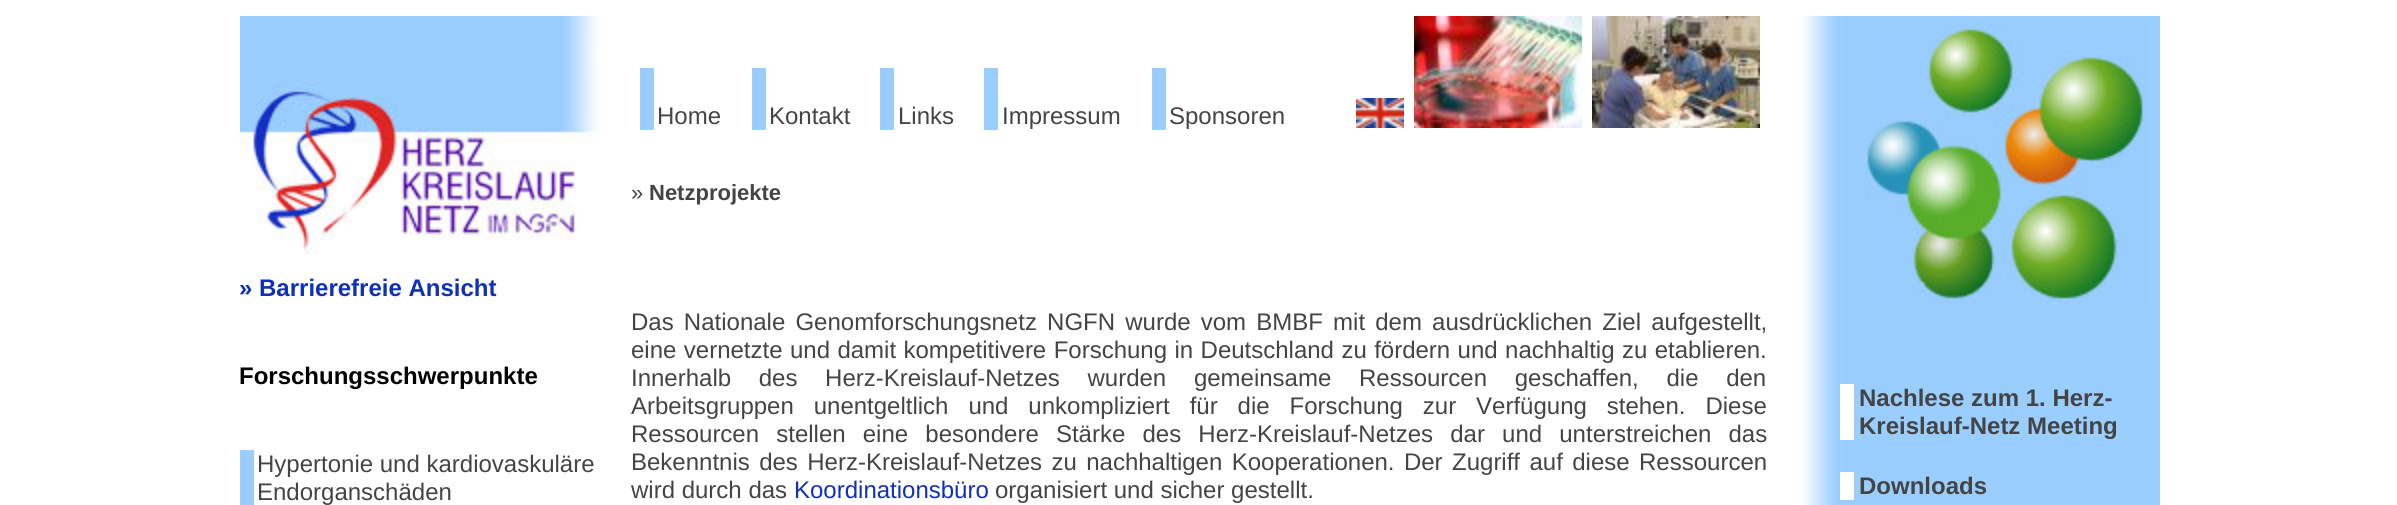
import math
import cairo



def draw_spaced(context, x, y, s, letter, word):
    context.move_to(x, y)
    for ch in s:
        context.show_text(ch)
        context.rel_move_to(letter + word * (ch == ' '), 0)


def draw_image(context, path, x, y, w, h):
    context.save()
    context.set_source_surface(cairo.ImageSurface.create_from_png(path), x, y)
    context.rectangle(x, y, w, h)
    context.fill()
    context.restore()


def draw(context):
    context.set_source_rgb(1, 1, 1)
    context.paint()
    context.set_source_rgb(153 / 255, 205 / 255, 1)
    context.rectangle(640, 68, 14, 62)
    context.fill()
    context.rectangle(752, 68, 14, 62)
    context.fill()
    context.rectangle(880, 68, 14, 62)
    context.fill()
    context.rectangle(984, 68, 14, 62)
    context.fill()
    context.rectangle(1152, 68, 14, 62)
    context.fill()
    draw_image(context, "images/1.png", 1356, 98, 48, 30)
    draw_image(context, "images/2.png", 1414, 16, 168, 112)
    draw_image(context, "images/3.png", 1592, 16, 168, 112)
    draw_image(context, "images/4.png", 240, 16, 360, 238)
    context.rectangle(240, 450, 14, 55)
    context.fill()
    draw_image(context, "images/5.png", 1803, 16, 357, 489)
    draw_image(context, "images/6.png", 1864, 24, 284, 280)
    context.set_source_rgb(1, 1, 1)
    context.rectangle(1840, 384, 14, 56)
    context.fill()
    context.rectangle(1840, 472, 14, 28)
    context.fill()
    context.select_font_face("Liberation Sans")
    context.set_font_size(24)
    context.set_source_rgb(68 / 255, 68 / 255, 68 / 255)
    context.move_to(657, 124)
    context.show_text("Home")
    context.move_to(769, 124)
    context.show_text("Kontakt")
    context.move_to(898, 124)
    context.show_text("Links")
    context.move_to(1002, 124)
    context.show_text("Impressum")
    context.move_to(1169, 124)
    context.show_text("Sponsoren")
    context.select_font_face("Liberation Sans", cairo.FontSlant.NORMAL, cairo.FontWeight.BOLD)
    context.set_source_rgb(16 / 255, 48 / 255, 185 / 255)
    context.move_to(239, 296)
    context.show_text("» Barrierefreie Ansicht")
    context.set_source_rgb(0, 0, 0)
    context.move_to(239, 384)
    context.show_text("Forschungsschwerpunkte")
    context.select_font_face("Liberation Sans")
    context.set_source_rgb(68 / 255, 68 / 255, 68 / 255)
    context.move_to(257, 472)
    context.show_text("Hypertonie und kardiovaskuläre")
    context.move_to(257, 500)
    context.show_text("Endorganschäden")
    context.select_font_face("Liberation Sans", cairo.FontSlant.NORMAL, cairo.FontWeight.BOLD)
    context.move_to(1859, 406)
    context.show_text("Nachlese zum 1. Herz-")
    context.move_to(1859, 434)
    context.show_text("Kreislauf-Netz Meeting")
    context.move_to(1859, 494)
    context.show_text("Downloads")
    context.select_font_face("Liberation Sans")
    context.set_font_size(22)
    context.move_to(631, 200)
    context.show_text("»")
    context.select_font_face("Liberation Sans", cairo.FontSlant.NORMAL, cairo.FontWeight.BOLD)
    context.move_to(649, 200)
    context.show_text("Netzprojekte")
    context.select_font_face("Liberation Sans")
    context.set_font_size(24)
    draw_spaced(context, 631, 330, "Das Nationale Genomforschungsnetz NGFN wurde vom BMBF mit dem ausdrücklichen Ziel aufgestellt,", 0, 3.5)
    draw_spaced(context, 631, 358, "eine vernetzte und damit kompetitivere Forschung in Deutschland zu fördern und nachhaltig zu etablieren.", 0, 0.75)
    draw_spaced(context, 631, 386, "Innerhalb des Herz-Kreislauf-Netzes wurden gemeinsame Ressourcen geschaffen, die den", 0, 21)
    draw_spaced(context, 631, 414, "Arbeitsgruppen unentgeltlich und unkompliziert für die Forschung zur Verfügung stehen. Diese", 0, 13.25)
    draw_spaced(context, 631, 442, "Ressourcen stellen eine besondere Stärke des Herz-Kreislauf-Netzes dar und unterstreichen das", 0, 10.5)
    draw_spaced(context, 631, 470, "Bekenntnis des Herz-Kreislauf-Netzes zu nachhaltigen Kooperationen. Der Zugriff auf diese Ressourcen", 0, 2.75)
    context.move_to(631, 498)
    context.show_text("wird durch das")
    context.set_source_rgb(16 / 255, 48 / 255, 185 / 255)
    context.move_to(794, 498)
    context.show_text("Koordinationsbüro")
    context.set_source_rgb(68 / 255, 68 / 255, 68 / 255)
    context.move_to(995, 498)
    context.show_text("organisiert und sicher gestellt.")


surface = cairo.ImageSurface(cairo.Format.RGB24, 2397, 505)
context = cairo.Context(surface)
options = cairo.FontOptions()
options.set_hint_metrics(cairo.HintMetrics.OFF)
options.set_hint_style(cairo.HintStyle.NONE)
context.set_font_options(options)
context.set_miter_limit(4)
draw(context)
surface.write_to_png("out.png")
